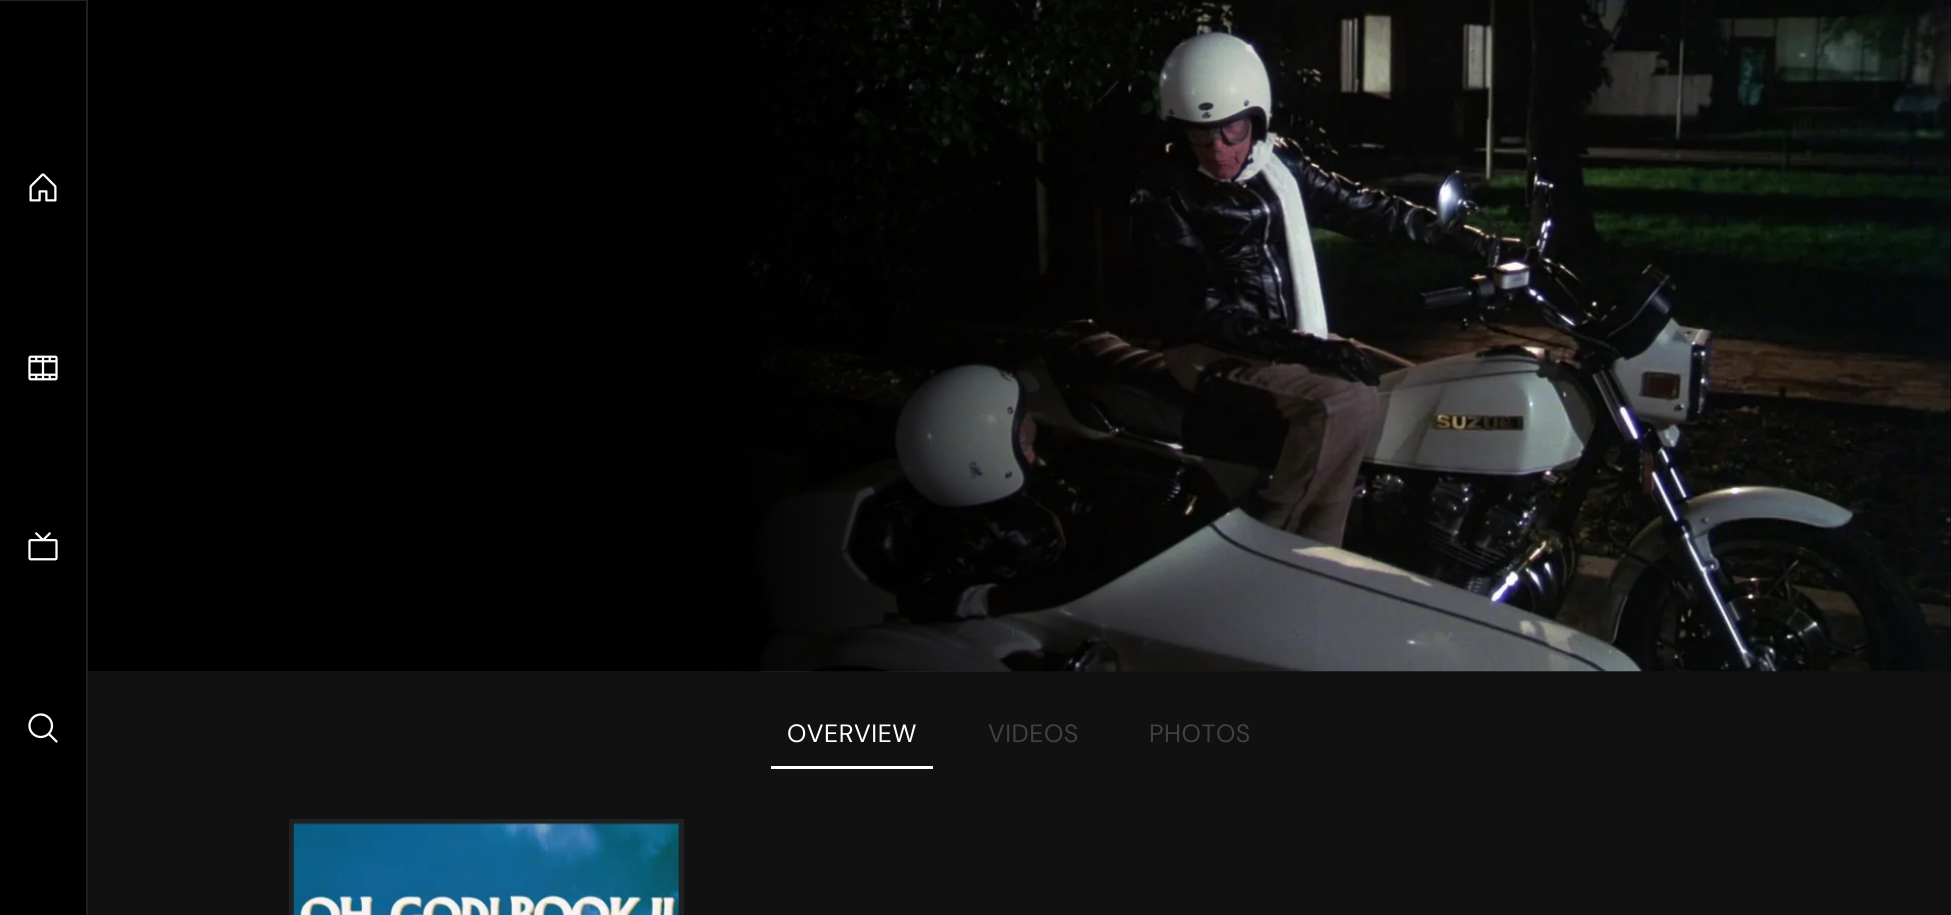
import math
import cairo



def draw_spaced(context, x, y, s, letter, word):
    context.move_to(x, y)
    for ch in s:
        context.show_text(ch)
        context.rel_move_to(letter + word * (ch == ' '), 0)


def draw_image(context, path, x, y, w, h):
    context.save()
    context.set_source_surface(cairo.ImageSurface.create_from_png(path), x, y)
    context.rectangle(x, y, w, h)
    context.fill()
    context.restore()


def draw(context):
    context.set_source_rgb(17 / 255, 17 / 255, 17 / 255)
    context.paint()
    context.set_source_rgb(0, 0, 0)
    context.rectangle(0, 0, 88, 915)
    context.fill()
    context.set_source_rgb(31 / 255, 33 / 255, 35 / 255)
    context.new_path()
    context.move_to(0, 0)
    context.line_to(88, 0)
    context.line_to(86, 1)
    context.line_to(0, 1)
    context.close_path()
    context.fill()
    context.set_source_rgba(156 / 255, 163 / 255, 175 / 255, 0.2)
    context.new_path()
    context.move_to(88, 0)
    context.line_to(88, 915)
    context.line_to(86, 915)
    context.line_to(86, 1)
    context.close_path()
    context.fill()
    draw_image(context, "images/1.png", 29, 173, 28, 29)
    draw_image(context, "images/2.png", 28, 355, 30, 26)
    draw_image(context, "images/3.png", 28, 532, 30, 29)
    draw_image(context, "images/4.png", 28, 713, 30, 30)
    draw_image(context, "images/5.png", 708, 0, 1243, 672)
    gradient = cairo.LinearGradient(88, 336, 1330, 336)
    gradient.add_color_stop_rgba(0, 0, 0, 0, 1)
    gradient.add_color_stop_rgba(0.5, 0, 0, 0, 1)
    gradient.add_color_stop_rgba(1, 0, 0, 0, 0)
    context.set_source(gradient)
    context.rectangle(88, 0, 1229, 671)
    context.fill()
    context.set_source_rgb(1, 1, 1)
    context.rectangle(771, 766, 162, 3)
    context.fill()
    context.rectangle(291.5, 821.5, 390, 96)
    context.set_source_rgb(31 / 255, 32 / 255, 33 / 255)
    context.set_line_width(5)
    context.stroke()
    draw_image(context, "images/6.png", 293, 823, 386, 92)
    context.select_font_face("DM Sans")
    context.set_font_size(25)
    context.set_source_rgb(1, 1, 1)
    draw_spaced(context, 787, 742, "OVERVIEW", 0.5, 0)
    context.set_source_rgb(65 / 255, 65 / 255, 65 / 255)
    draw_spaced(context, 988, 742, "VIDEOS", 0.5, 0)
    draw_spaced(context, 1149, 742, "PHOTOS", 0.5, 0)


surface = cairo.ImageSurface(cairo.Format.RGB24, 1951, 915)
context = cairo.Context(surface)
options = cairo.FontOptions()
options.set_hint_metrics(cairo.HintMetrics.OFF)
options.set_hint_style(cairo.HintStyle.NONE)
context.set_font_options(options)
context.set_miter_limit(4)
draw(context)
surface.write_to_png("out.png")
